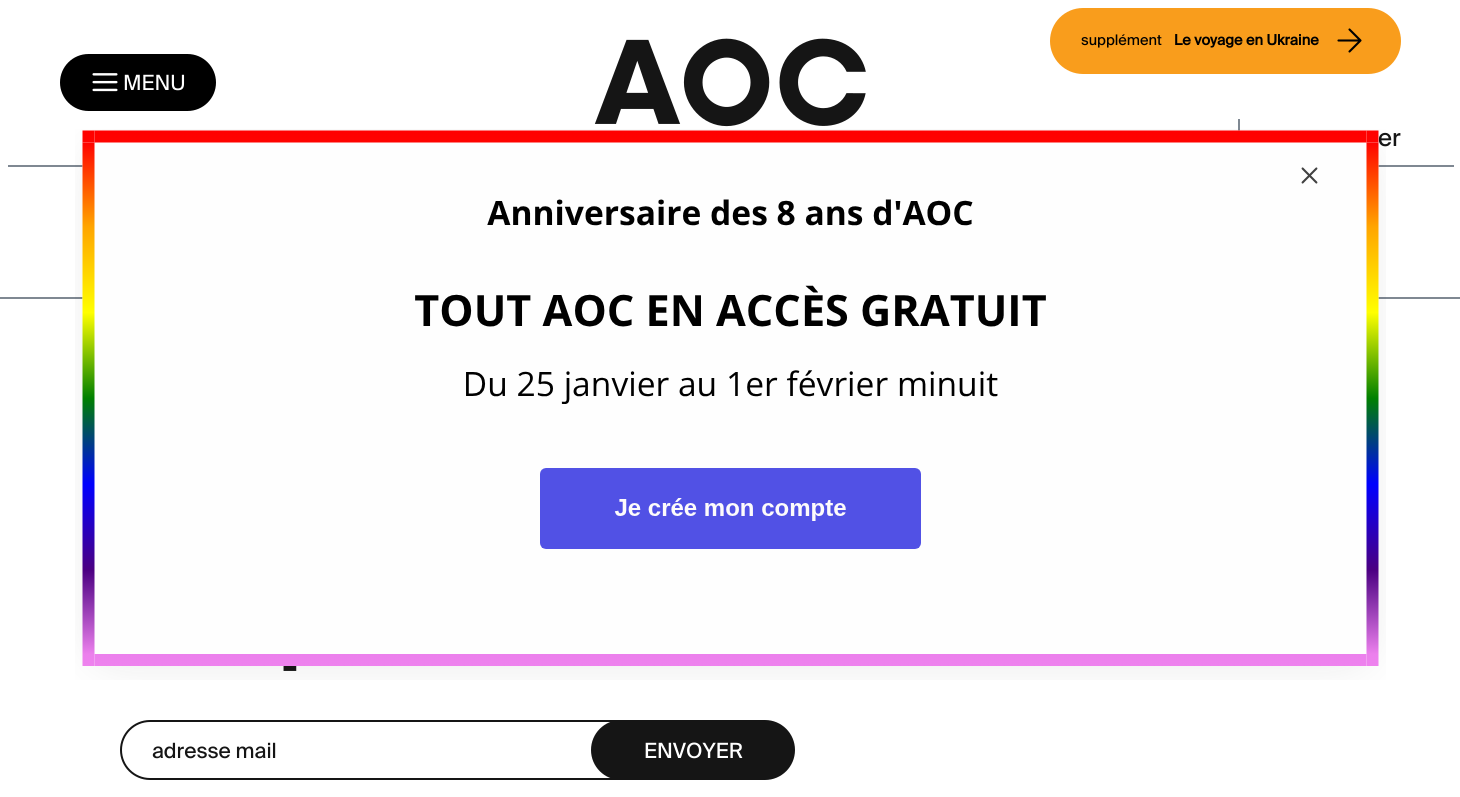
import math
import cairo



def rounded_rect(context, x, y, w, h, r):
    context.new_sub_path()
    for i, (u, v) in enumerate([(x + w - r, y + h - r), (x + r, y + h - r), (x + r, y + r), (x + w - r, y + r)]):
        context.arc(u, v, r, i * math.pi / 2, (i + 1) * math.pi / 2)
    context.close_path()


def draw_image(context, path, x, y, w, h):
    context.save()
    context.set_source_surface(cairo.ImageSurface.create_from_png(path), x, y)
    context.rectangle(x, y, w, h)
    context.fill()
    context.restore()


def draw(context):
    context.set_source_rgb(1, 1, 1)
    context.paint()
    context.set_source_rgb(0, 0, 0)
    rounded_rect(context, 60, 54, 156, 57, 28.5)
    context.fill()
    draw_image(context, "images/1.png", 92, 73, 26, 19)
    draw_image(context, "images/2.png", 594, 38, 272, 89)
    context.set_source_rgb(249 / 255, 157 / 255, 28 / 255)
    rounded_rect(context, 1050, 8, 351, 66, 33)
    context.fill()
    context.new_path()
    context.move_to(1338.5, 40.5)
    context.line_to(1360.5, 40.5)
    context.move_to(1360.5, 40.5)
    context.line_to(1349.5, 29.5)
    context.move_to(1360.5, 40.5)
    context.line_to(1349.5, 51.5)
    context.set_source_rgb(0, 0, 0)
    context.set_line_width(2.1)
    context.set_line_cap(cairo.LineCap.ROUND)
    context.set_line_join(cairo.LineJoin.ROUND)
    context.stroke()
    context.set_source_rgb(127 / 255, 136 / 255, 146 / 255)
    context.rectangle(1238, 119, 2, 12)
    context.fill()
    context.rectangle(8, 165, 1446, 2)
    context.fill()
    context.rectangle(0, 297, 1460, 2)
    context.fill()
    context.new_path()
    context.move_to(150, 721)
    context.line_to(620, 721)
    context.line_to(620, 779)
    context.line_to(150, 779)
    context.curve_to(134, 779, 121, 766, 121, 750)
    context.curve_to(121, 734, 134, 721, 150, 721)
    context.close_path()
    context.set_source_rgb(21 / 255, 21 / 255, 21 / 255)
    context.set_line_width(2)
    context.set_line_cap(cairo.LineCap.BUTT)
    context.set_line_join(cairo.LineJoin.MITER)
    context.stroke()
    rounded_rect(context, 591, 720, 204, 60, 30)
    context.fill()
    context.select_font_face("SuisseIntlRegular")
    context.set_font_size(21)
    context.set_source_rgb(1, 1, 1)
    context.move_to(123, 90)
    context.show_text("MENU")
    context.select_font_face("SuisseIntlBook")
    context.set_font_size(14.6)
    context.set_source_rgb(0, 0, 0)
    context.move_to(1081, 45)
    context.show_text("supplément")
    context.select_font_face("SuisseIntlBook", cairo.FontSlant.NORMAL, cairo.FontWeight.BOLD)
    context.move_to(1174, 45)
    context.show_text("Le voyage en Ukraine")
    context.select_font_face("SuisseIntlBook")
    context.set_font_size(24)
    context.set_source_rgb(21 / 255, 21 / 255, 21 / 255)
    context.move_to(1378, 146)
    context.show_text("er")
    context.select_font_face("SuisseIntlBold", cairo.FontSlant.NORMAL, cairo.FontWeight.BOLD)
    context.set_font_size(36)
    context.move_to(282, 678)
    context.show_text("-")
    draw_image(context, "images/3.png", 75, 129, 1311, 551)
    context.select_font_face("SuisseIntlBook")
    context.set_font_size(21)
    context.move_to(152, 758)
    context.show_text("adresse mail")
    context.set_source_rgb(1, 1, 1)
    context.move_to(644, 758)
    context.show_text("ENVOYER")


surface = cairo.ImageSurface(cairo.Format.RGB24, 1460, 797)
context = cairo.Context(surface)
options = cairo.FontOptions()
options.set_hint_metrics(cairo.HintMetrics.OFF)
options.set_hint_style(cairo.HintStyle.NONE)
context.set_font_options(options)
context.set_miter_limit(4)
draw(context)
surface.write_to_png("out.png")
